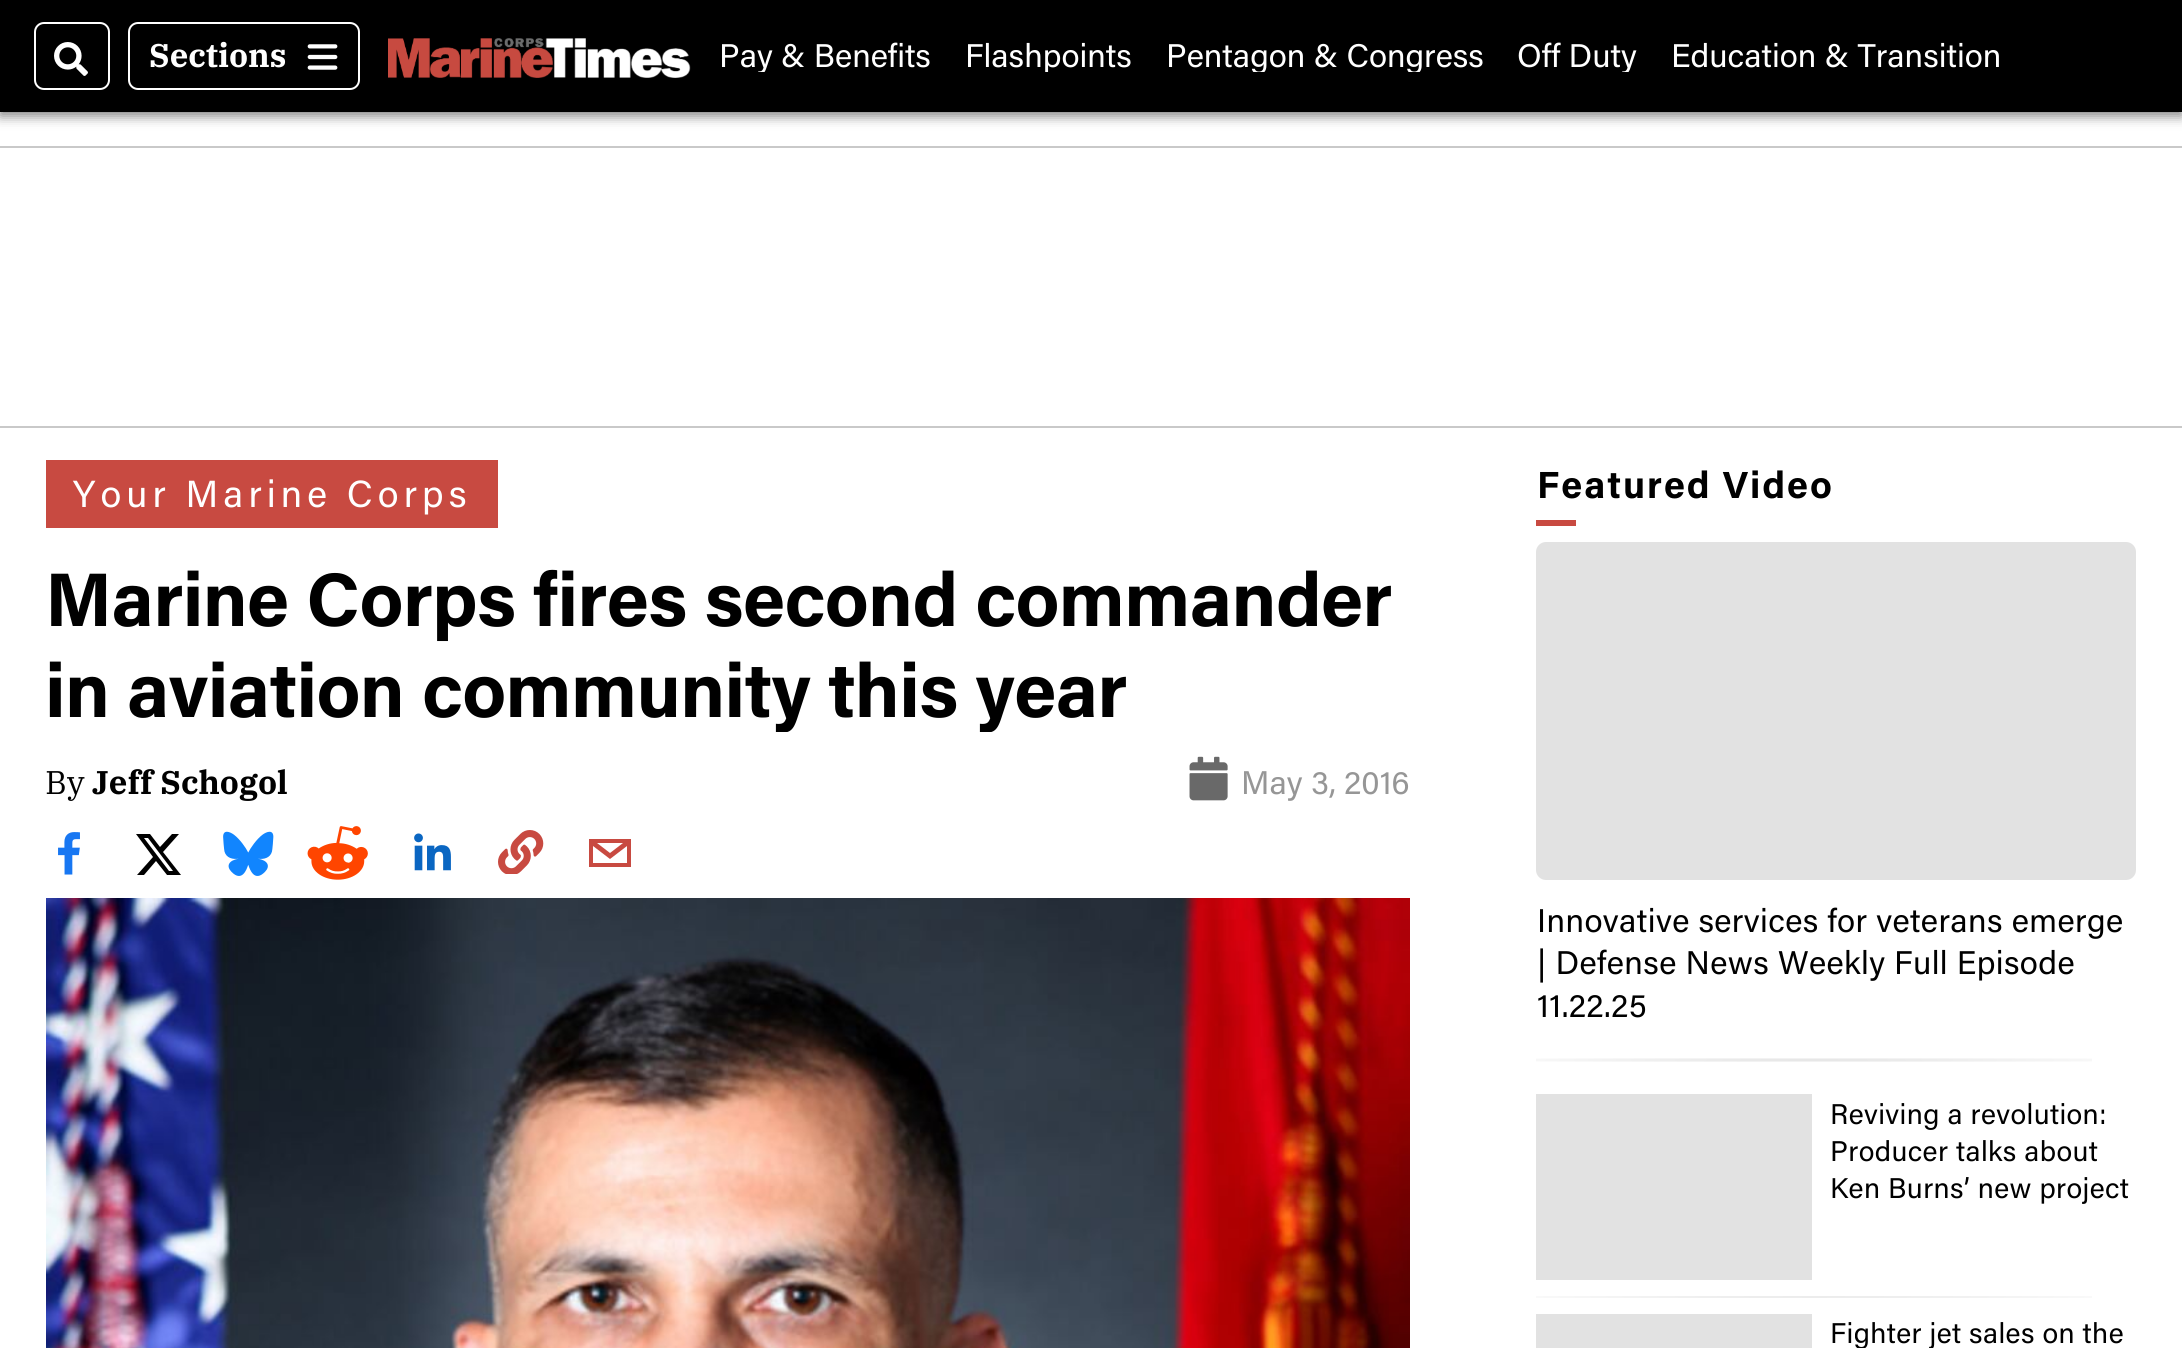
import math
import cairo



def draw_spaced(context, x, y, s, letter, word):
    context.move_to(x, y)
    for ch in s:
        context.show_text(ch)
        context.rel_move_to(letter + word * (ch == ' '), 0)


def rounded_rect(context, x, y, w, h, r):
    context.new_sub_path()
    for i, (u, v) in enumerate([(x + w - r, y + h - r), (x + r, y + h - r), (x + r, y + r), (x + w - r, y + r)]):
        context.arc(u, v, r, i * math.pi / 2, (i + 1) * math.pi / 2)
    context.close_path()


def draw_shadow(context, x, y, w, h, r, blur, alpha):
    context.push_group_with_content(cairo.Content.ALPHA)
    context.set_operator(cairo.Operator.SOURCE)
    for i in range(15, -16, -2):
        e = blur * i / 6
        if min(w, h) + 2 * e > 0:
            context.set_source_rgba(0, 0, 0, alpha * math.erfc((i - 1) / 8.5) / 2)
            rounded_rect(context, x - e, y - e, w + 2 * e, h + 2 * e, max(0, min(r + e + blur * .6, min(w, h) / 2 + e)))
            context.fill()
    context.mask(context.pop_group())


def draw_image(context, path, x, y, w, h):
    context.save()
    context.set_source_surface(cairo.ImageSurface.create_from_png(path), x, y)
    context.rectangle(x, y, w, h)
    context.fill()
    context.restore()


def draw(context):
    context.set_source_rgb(1, 1, 1)
    context.paint()
    context.set_source_rgb(0, 0, 0)
    draw_shadow(context, 0, 4, 2182, 112, 0, 6, 0.5)
    context.set_source_rgb(0, 0, 0)
    context.rectangle(0, 0, 2182, 112)
    context.fill()
    rounded_rect(context, 35, 23, 74, 66, 9)
    context.set_source_rgb(1, 1, 1)
    context.stroke()
    draw_image(context, "images/1.png", 54, 42, 34, 34)
    rounded_rect(context, 129, 23, 230, 66, 9)
    context.stroke()
    draw_image(context, "images/2.png", 307, 44, 31, 26)
    draw_image(context, "images/3.png", 388, 38, 303, 40)
    context.set_source_rgb(201 / 255, 201 / 255, 201 / 255)
    context.rectangle(0, 146, 2182, 2)
    context.fill()
    context.rectangle(0, 426, 2182, 2)
    context.fill()
    context.set_source_rgb(200 / 255, 74 / 255, 65 / 255)
    context.rectangle(46, 460, 452, 68)
    context.fill()
    draw_image(context, "images/4.png", 1189, 756, 39, 45)
    draw_image(context, "images/5.png", 58, 832, 22, 43)
    context.set_source_rgb(0, 0, 0)
    context.new_path()
    context.move_to(172, 834)
    context.line_to(179, 834)
    context.line_to(163, 852)
    context.line_to(181, 875)
    context.line_to(167, 875)
    context.line_to(156, 861)
    context.line_to(144, 875)
    context.line_to(137, 875)
    context.line_to(153, 857)
    context.line_to(136, 834)
    context.line_to(150, 834)
    context.line_to(160, 847)
    context.close_path()
    context.move_to(169, 871)
    context.line_to(173, 871)
    context.line_to(148, 838)
    context.line_to(144, 838)
    context.close_path()
    context.fill()
    draw_image(context, "images/6.png", 223, 831, 51, 45)
    draw_image(context, "images/7.png", 307, 826, 61, 54)
    draw_image(context, "images/8.png", 414, 833, 37, 38)
    draw_image(context, "images/9.png", 498, 830, 46, 44)
    context.set_source_rgb(200 / 255, 74 / 255, 65 / 255)
    context.new_path()
    context.move_to(589, 839)
    context.line_to(589, 867)
    context.line_to(631, 867)
    context.line_to(631, 839)
    context.close_path()
    context.move_to(623, 843)
    context.line_to(610, 853)
    context.line_to(597, 843)
    context.close_path()
    context.move_to(593, 863)
    context.line_to(593, 846)
    context.line_to(610, 859)
    context.line_to(627, 846)
    context.line_to(627, 863)
    context.close_path()
    context.fill()
    draw_image(context, "images/10.png", 46, 898, 1364, 450)
    context.rectangle(1536, 520, 40, 6)
    context.fill()
    context.set_source_rgb(226 / 255, 226 / 255, 226 / 255)
    rounded_rect(context, 1536, 542, 600, 338, 10)
    context.fill()
    gradient = cairo.RadialGradient(0, 0, 0, 0, 0, 1)
    gradient.set_matrix(cairo.Matrix(1 / 393, 0, 0, 1 / 2.8, -1 * 1814 / 393, -1 * 1060 / 2.8))
    gradient.add_color_stop_rgba(0, 226 / 255, 226 / 255, 226 / 255, 1)
    gradient.add_color_stop_rgba(1, 1, 1, 1, 1)
    context.set_source(gradient)
    context.rectangle(1536, 1058, 556, 4)
    context.fill()
    context.set_source_rgb(226 / 255, 226 / 255, 226 / 255)
    context.rectangle(1536, 1094, 276, 186)
    context.fill()
    gradient = cairo.RadialGradient(0, 0, 0, 0, 0, 1)
    gradient.set_matrix(cairo.Matrix(1 / 393, 0, 0, 1 / 1.4, -1 * 1814 / 393, -1 * 1297 / 1.4))
    gradient.add_color_stop_rgba(0, 226 / 255, 226 / 255, 226 / 255, 1)
    gradient.add_color_stop_rgba(1, 1, 1, 1, 1)
    context.set_source(gradient)
    context.rectangle(1536, 1296, 556, 2)
    context.fill()
    context.set_source_rgb(226 / 255, 226 / 255, 226 / 255)
    context.rectangle(1536, 1314, 276, 34)
    context.fill()
    context.select_font_face("IBM Plex Serif", cairo.FontSlant.NORMAL, cairo.FontWeight.BOLD)
    context.set_font_size(32.8)
    context.set_source_rgb(1, 1, 1)
    context.move_to(149, 67)
    context.show_text("Sections")
    context.save()
    context.rectangle(720, 40, 1400, 32)
    context.clip()
    context.select_font_face("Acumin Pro")
    context.move_to(719, 67)
    context.show_text("Pay & Benefits")
    context.move_to(965, 67)
    context.show_text("Flashpoints")
    context.move_to(1166, 67)
    context.show_text("Pentagon & Congress")
    context.move_to(1517, 67)
    context.show_text("Off Duty")
    context.restore()
    context.select_font_face("Acumin Pro")
    context.move_to(1671, 67)
    context.show_text("Education & Transition")
    context.set_font_size(37.75)
    draw_spaced(context, 73, 507, "Your Marine Corps", 5.1, 0)
    context.select_font_face("Acumin Pro", cairo.FontSlant.NORMAL, cairo.FontWeight.BOLD)
    context.set_font_size(75.9)
    context.set_source_rgb(0, 0, 0)
    draw_spaced(context, 45, 626, "Marine Corps fires second commander", -0.65, 0)
    context.save()
    context.rectangle(46, 550, 1364, 182)
    context.clip()
    draw_spaced(context, 45, 717, "in aviation community this year", -0.65, 0)
    context.restore()
    context.select_font_face("IBM Plex Serif")
    context.set_font_size(32.8)
    context.move_to(45, 794)
    context.show_text("By")
    context.select_font_face("IBM Plex Serif", cairo.FontSlant.NORMAL, cairo.FontWeight.BOLD)
    context.move_to(92, 794)
    context.show_text("Jeff Schogol")
    context.select_font_face("Acumin Pro")
    context.set_source_rgb(150 / 255, 150 / 255, 150 / 255)
    context.move_to(1241, 794)
    context.show_text("May 3, 2016")
    context.select_font_face("Acumin Pro", cairo.FontSlant.NORMAL, cairo.FontWeight.BOLD)
    context.set_font_size(37.75)
    context.set_source_rgb(0, 0, 0)
    draw_spaced(context, 1537, 498, "Featured Video", 2, 0)
    context.select_font_face("Acumin Pro")
    context.set_font_size(32.8)
    draw_spaced(context, 1537, 932, "Innovative services for veterans emerge", 0.4, 0)
    draw_spaced(context, 1537, 974, "| Defense News Weekly Full Episode", 0.4, 0)
    draw_spaced(context, 1537, 1017, "11.22.25", 0.4, 0)
    context.set_font_size(28.5)
    draw_spaced(context, 1830, 1124, "Reviving a revolution:", 0.4, 0)
    draw_spaced(context, 1830, 1161, "Producer talks about", 0.4, 0)
    draw_spaced(context, 1830, 1198, "Ken Burns’ new project", 0.4, 0)
    draw_spaced(context, 1830, 1343, "Fighter jet sales on the", 0.4, 0)


surface = cairo.ImageSurface(cairo.Format.RGB24, 2182, 1348)
context = cairo.Context(surface)
options = cairo.FontOptions()
options.set_hint_metrics(cairo.HintMetrics.OFF)
options.set_hint_style(cairo.HintStyle.NONE)
context.set_font_options(options)
context.set_miter_limit(4)
draw(context)
surface.write_to_png("out.png")
